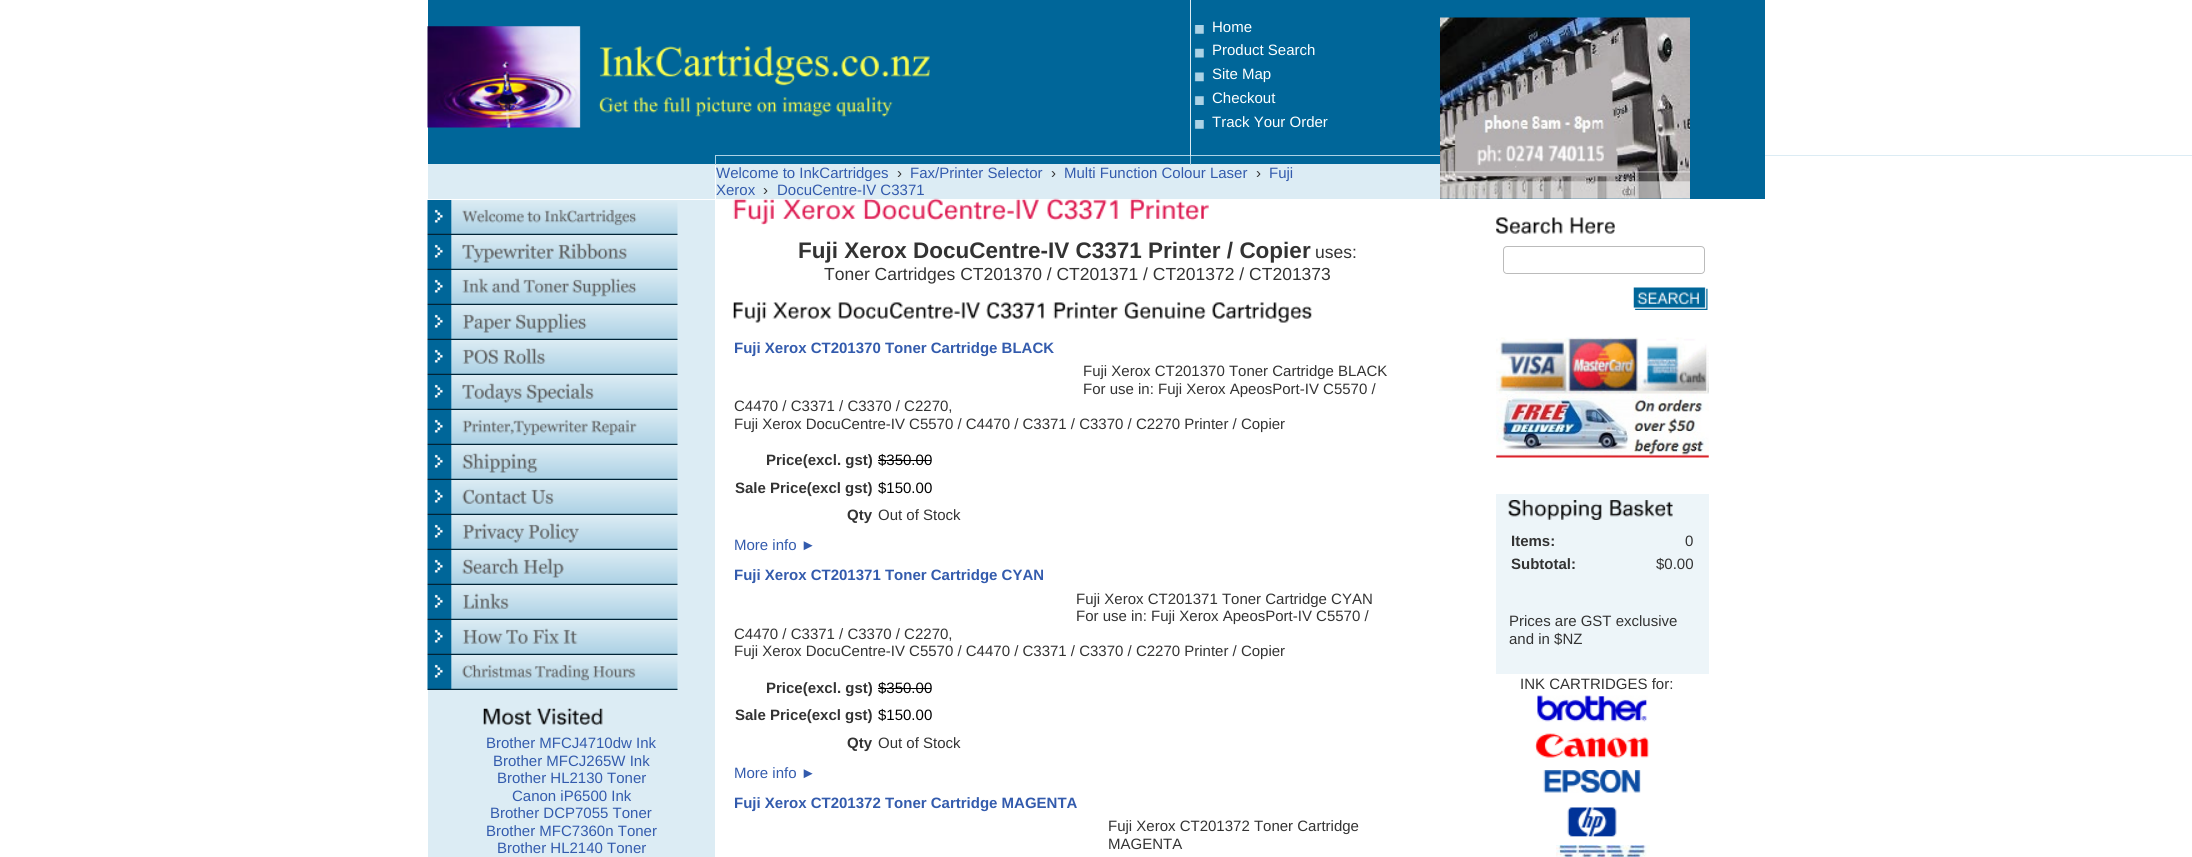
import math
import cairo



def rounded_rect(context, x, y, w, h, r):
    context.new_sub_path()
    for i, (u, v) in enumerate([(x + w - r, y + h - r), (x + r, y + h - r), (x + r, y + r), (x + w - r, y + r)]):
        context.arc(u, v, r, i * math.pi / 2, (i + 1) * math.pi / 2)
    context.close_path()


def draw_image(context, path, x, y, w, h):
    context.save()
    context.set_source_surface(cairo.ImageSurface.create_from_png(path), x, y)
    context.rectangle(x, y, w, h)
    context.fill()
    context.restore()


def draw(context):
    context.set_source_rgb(1, 1, 1)
    context.paint()
    context.set_source_rgb(0, 102 / 255, 153 / 255)
    context.rectangle(428, 0, 762, 155)
    context.fill()
    draw_image(context, "images/1.png", 427, 26, 503, 102)
    context.rectangle(1191, 0, 249, 155)
    context.fill()
    context.rectangle(1440, 0, 325, 199)
    context.fill()
    context.set_source_rgb(172 / 255, 210 / 255, 229 / 255)
    context.rectangle(1190, 155, 251, 1)
    context.fill()
    context.set_source_rgb(220 / 255, 236 / 255, 244 / 255)
    context.rectangle(716, 164, 724, 35)
    context.fill()
    context.set_source_rgb(172 / 255, 210 / 255, 229 / 255)
    context.rectangle(1190, 155, 1, 10)
    context.fill()
    context.rectangle(715, 155, 476, 1)
    context.fill()
    context.set_source_rgb(220 / 255, 236 / 255, 244 / 255)
    context.rectangle(1190, 0, 1, 156)
    context.fill()
    draw_image(context, "images/2.png", 1194, 25, 10, 9)
    draw_image(context, "images/3.png", 1194, 48, 10, 10)
    draw_image(context, "images/4.png", 1194, 72, 10, 10)
    draw_image(context, "images/5.png", 1194, 96, 10, 9)
    draw_image(context, "images/2.png", 1194, 120, 10, 9)
    draw_image(context, "images/6.png", 1440, 17, 250, 182)
    context.set_source_rgb(0, 102 / 255, 153 / 255)
    context.rectangle(428, 155, 287, 9)
    context.fill()
    context.rectangle(716, 156, 474, 8)
    context.fill()
    context.set_source_rgb(172 / 255, 210 / 255, 229 / 255)
    context.rectangle(715, 155, 1, 10)
    context.fill()
    context.set_source_rgb(0, 102 / 255, 153 / 255)
    context.rectangle(1191, 156, 249, 8)
    context.fill()
    context.set_source_rgb(220 / 255, 236 / 255, 244 / 255)
    context.rectangle(1765, 155, 427, 1)
    context.fill()
    context.rectangle(428, 164, 287, 35)
    context.fill()
    draw_image(context, "images/7.png", 733, 198, 476, 27)
    draw_image(context, "images/8.png", 733, 302, 579, 21)
    context.set_source_rgb(0, 0, 0)
    context.rectangle(878, 460, 53, 1)
    context.fill()
    context.rectangle(878, 688, 53, 1)
    context.fill()
    draw_image(context, "images/9.png", 1496, 217, 119, 17)
    rounded_rect(context, 1503.5, 246.5, 201, 27, 3.5)
    context.set_source_rgb(187 / 255, 187 / 255, 187 / 255)
    context.set_line_width(1)
    context.stroke()
    context.set_source_rgb(1, 1, 1)
    rounded_rect(context, 1504, 248, 200, 25, 4)
    context.fill()
    draw_image(context, "images/10.png", 1633, 287, 75, 23)
    draw_image(context, "images/11.png", 1496, 337, 213, 57)
    draw_image(context, "images/12.png", 1496, 393, 213, 65)
    context.set_source_rgb(237 / 255, 245 / 255, 249 / 255)
    context.rectangle(1496, 494, 213, 180)
    context.fill()
    draw_image(context, "images/13.png", 1508, 500, 165, 20)
    draw_image(context, "images/14.png", 1537, 695, 111, 27)
    draw_image(context, "images/15.png", 1535, 733, 114, 27)
    draw_image(context, "images/16.png", 1543, 770, 98, 23)
    draw_image(context, "images/17.png", 1567, 807, 50, 30)
    draw_image(context, "images/18.png", 1556, 845, 94, 12)
    context.set_source_rgb(220 / 255, 236 / 255, 244 / 255)
    context.rectangle(428, 200, 287, 657)
    context.fill()
    draw_image(context, "images/19.png", 427, 200, 251, 35)
    draw_image(context, "images/20.png", 427, 235, 251, 35)
    draw_image(context, "images/21.png", 427, 270, 251, 35)
    draw_image(context, "images/22.png", 427, 305, 251, 35)
    draw_image(context, "images/23.png", 427, 340, 251, 35)
    draw_image(context, "images/24.png", 427, 375, 251, 35)
    draw_image(context, "images/25.png", 427, 410, 251, 35)
    draw_image(context, "images/26.png", 427, 445, 251, 35)
    draw_image(context, "images/27.png", 427, 480, 251, 35)
    draw_image(context, "images/28.png", 427, 515, 251, 35)
    draw_image(context, "images/29.png", 427, 550, 251, 35)
    draw_image(context, "images/30.png", 427, 585, 251, 35)
    draw_image(context, "images/31.png", 427, 620, 251, 35)
    draw_image(context, "images/32.png", 427, 655, 251, 35)
    draw_image(context, "images/33.png", 483, 708, 120, 17)
    context.select_font_face("Liberation Sans")
    context.set_font_size(15)
    context.set_source_rgb(1, 1, 1)
    context.move_to(1212, 32)
    context.show_text("Home")
    context.move_to(1212, 55)
    context.show_text("Product Search")
    context.move_to(1212, 79)
    context.show_text("Site Map")
    context.move_to(1212, 103)
    context.show_text("Checkout")
    context.move_to(1212, 127)
    context.show_text("Track Your Order")
    context.set_source_rgb(51 / 255, 91 / 255, 173 / 255)
    context.move_to(716, 178)
    context.show_text("Welcome to InkCartridges")
    context.set_source_rgb(51 / 255, 51 / 255, 51 / 255)
    context.move_to(897, 178)
    context.show_text("›")
    context.set_source_rgb(51 / 255, 91 / 255, 173 / 255)
    context.move_to(910, 178)
    context.show_text("Fax/Printer Selector")
    context.set_source_rgb(51 / 255, 51 / 255, 51 / 255)
    context.move_to(1051, 178)
    context.show_text("›")
    context.set_source_rgb(51 / 255, 91 / 255, 173 / 255)
    context.move_to(1064, 178)
    context.show_text("Multi Function Colour Laser")
    context.set_source_rgb(51 / 255, 51 / 255, 51 / 255)
    context.move_to(1256, 178)
    context.show_text("›")
    context.set_source_rgb(51 / 255, 91 / 255, 173 / 255)
    context.move_to(1269, 178)
    context.show_text("Fuji")
    context.move_to(716, 195)
    context.show_text("Xerox")
    context.set_source_rgb(51 / 255, 51 / 255, 51 / 255)
    context.move_to(763, 195)
    context.show_text("›")
    context.set_source_rgb(51 / 255, 91 / 255, 173 / 255)
    context.move_to(777, 195)
    context.show_text("DocuCentre-IV C3371")
    context.select_font_face("Liberation Sans", cairo.FontSlant.NORMAL, cairo.FontWeight.BOLD)
    context.set_font_size(22.5)
    context.set_source_rgb(51 / 255, 51 / 255, 51 / 255)
    context.move_to(798, 258)
    context.show_text("Fuji Xerox DocuCentre-IV C3371 Printer / Copier")
    context.select_font_face("Liberation Sans")
    context.set_font_size(17.5)
    context.move_to(1315, 258)
    context.show_text("uses:")
    context.move_to(824, 280)
    context.show_text("Toner Cartridges CT201370 / CT201371 / CT201372 / CT201373")
    context.select_font_face("Liberation Sans", cairo.FontSlant.NORMAL, cairo.FontWeight.BOLD)
    context.set_font_size(15)
    context.set_source_rgb(51 / 255, 91 / 255, 173 / 255)
    context.move_to(734, 353)
    context.show_text("Fuji Xerox CT201370 Toner Cartridge BLACK")
    context.select_font_face("Liberation Sans")
    context.set_source_rgb(51 / 255, 51 / 255, 51 / 255)
    context.move_to(1083, 376)
    context.show_text("Fuji Xerox CT201370 Toner Cartridge BLACK")
    context.move_to(1083, 394)
    context.show_text("For use in: Fuji Xerox ApeosPort-IV C5570 /")
    context.move_to(734, 411)
    context.show_text("C4470 / C3371 / C3370 / C2270,")
    context.move_to(734, 429)
    context.show_text("Fuji Xerox DocuCentre-IV C5570 / C4470 / C3371 / C3370 / C2270 Printer / Copier")
    context.select_font_face("Liberation Sans", cairo.FontSlant.NORMAL, cairo.FontWeight.BOLD)
    context.move_to(766, 465)
    context.show_text("Price(excl. gst)")
    context.select_font_face("Liberation Sans")
    context.set_source_rgb(0, 0, 0)
    context.move_to(878, 465)
    context.show_text("$350.00")
    context.select_font_face("Liberation Sans", cairo.FontSlant.NORMAL, cairo.FontWeight.BOLD)
    context.set_source_rgb(51 / 255, 51 / 255, 51 / 255)
    context.move_to(735, 493)
    context.show_text("Sale Price(excl gst)")
    context.select_font_face("Liberation Sans")
    context.set_source_rgb(0, 0, 0)
    context.move_to(878, 493)
    context.show_text("$150.00")
    context.select_font_face("Liberation Sans", cairo.FontSlant.NORMAL, cairo.FontWeight.BOLD)
    context.set_source_rgb(51 / 255, 51 / 255, 51 / 255)
    context.move_to(847, 520)
    context.show_text("Qty")
    context.select_font_face("Liberation Sans")
    context.move_to(878, 520)
    context.show_text("Out of Stock")
    context.set_source_rgb(51 / 255, 91 / 255, 173 / 255)
    context.move_to(734, 550)
    context.show_text("More info ►")
    context.select_font_face("Liberation Sans", cairo.FontSlant.NORMAL, cairo.FontWeight.BOLD)
    context.move_to(734, 580)
    context.show_text("Fuji Xerox CT201371 Toner Cartridge CYAN")
    context.select_font_face("Liberation Sans")
    context.set_source_rgb(51 / 255, 51 / 255, 51 / 255)
    context.move_to(1076, 604)
    context.show_text("Fuji Xerox CT201371 Toner Cartridge CYAN")
    context.move_to(1076, 621)
    context.show_text("For use in: Fuji Xerox ApeosPort-IV C5570 /")
    context.move_to(734, 639)
    context.show_text("C4470 / C3371 / C3370 / C2270,")
    context.move_to(734, 656)
    context.show_text("Fuji Xerox DocuCentre-IV C5570 / C4470 / C3371 / C3370 / C2270 Printer / Copier")
    context.select_font_face("Liberation Sans", cairo.FontSlant.NORMAL, cairo.FontWeight.BOLD)
    context.move_to(766, 693)
    context.show_text("Price(excl. gst)")
    context.select_font_face("Liberation Sans")
    context.set_source_rgb(0, 0, 0)
    context.move_to(878, 693)
    context.show_text("$350.00")
    context.select_font_face("Liberation Sans", cairo.FontSlant.NORMAL, cairo.FontWeight.BOLD)
    context.set_source_rgb(51 / 255, 51 / 255, 51 / 255)
    context.move_to(735, 720)
    context.show_text("Sale Price(excl gst)")
    context.select_font_face("Liberation Sans")
    context.set_source_rgb(0, 0, 0)
    context.move_to(878, 720)
    context.show_text("$150.00")
    context.select_font_face("Liberation Sans", cairo.FontSlant.NORMAL, cairo.FontWeight.BOLD)
    context.set_source_rgb(51 / 255, 51 / 255, 51 / 255)
    context.move_to(847, 748)
    context.show_text("Qty")
    context.select_font_face("Liberation Sans")
    context.move_to(878, 748)
    context.show_text("Out of Stock")
    context.set_source_rgb(51 / 255, 91 / 255, 173 / 255)
    context.move_to(734, 778)
    context.show_text("More info ►")
    context.select_font_face("Liberation Sans", cairo.FontSlant.NORMAL, cairo.FontWeight.BOLD)
    context.move_to(734, 808)
    context.show_text("Fuji Xerox CT201372 Toner Cartridge MAGENTA")
    context.select_font_face("Liberation Sans")
    context.set_source_rgb(51 / 255, 51 / 255, 51 / 255)
    context.move_to(1108, 831)
    context.show_text("Fuji Xerox CT201372 Toner Cartridge")
    context.move_to(1108, 849)
    context.show_text("MAGENTA")
    context.select_font_face("Liberation Sans", cairo.FontSlant.NORMAL, cairo.FontWeight.BOLD)
    context.move_to(1511, 546)
    context.show_text("Items:")
    context.select_font_face("Liberation Sans")
    context.move_to(1685, 546)
    context.show_text("0")
    context.select_font_face("Liberation Sans", cairo.FontSlant.NORMAL, cairo.FontWeight.BOLD)
    context.move_to(1511, 569)
    context.show_text("Subtotal:")
    context.select_font_face("Liberation Sans")
    context.move_to(1656, 569)
    context.show_text("$0.00")
    context.move_to(1509, 626)
    context.show_text("Prices are GST exclusive")
    context.move_to(1509, 644)
    context.show_text("and in $NZ")
    context.move_to(1520, 689)
    context.show_text("INK CARTRIDGES for:")
    context.set_source_rgb(51 / 255, 91 / 255, 173 / 255)
    context.move_to(486, 748)
    context.show_text("Brother MFCJ4710dw Ink")
    context.move_to(493, 766)
    context.show_text("Brother MFCJ265W Ink")
    context.move_to(497, 783)
    context.show_text("Brother HL2130 Toner")
    context.move_to(512, 801)
    context.show_text("Canon iP6500 Ink")
    context.move_to(490, 818)
    context.show_text("Brother DCP7055 Toner")
    context.move_to(486, 836)
    context.show_text("Brother MFC7360n Toner")
    context.move_to(497, 853)
    context.show_text("Brother HL2140 Toner")


surface = cairo.ImageSurface(cairo.Format.RGB24, 2192, 857)
context = cairo.Context(surface)
options = cairo.FontOptions()
options.set_hint_metrics(cairo.HintMetrics.OFF)
options.set_hint_style(cairo.HintStyle.NONE)
context.set_font_options(options)
context.set_miter_limit(4)
draw(context)
surface.write_to_png("out.png")
